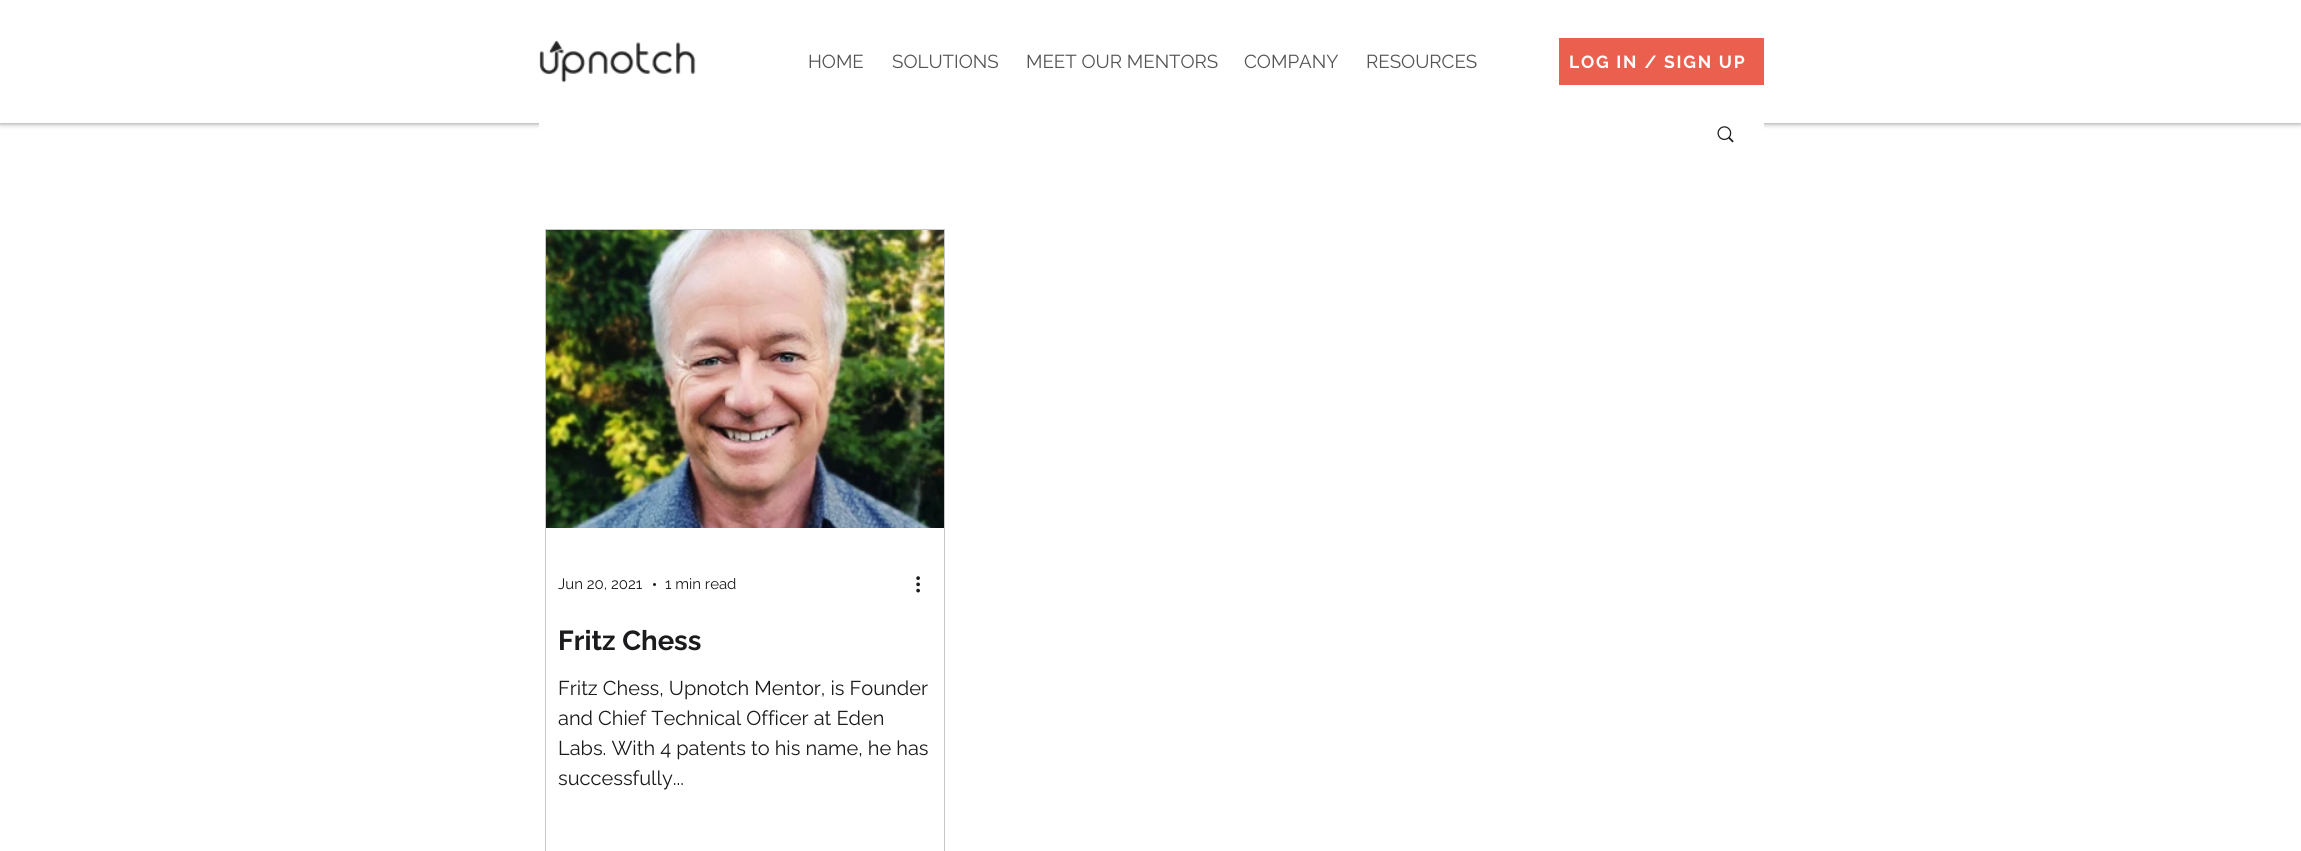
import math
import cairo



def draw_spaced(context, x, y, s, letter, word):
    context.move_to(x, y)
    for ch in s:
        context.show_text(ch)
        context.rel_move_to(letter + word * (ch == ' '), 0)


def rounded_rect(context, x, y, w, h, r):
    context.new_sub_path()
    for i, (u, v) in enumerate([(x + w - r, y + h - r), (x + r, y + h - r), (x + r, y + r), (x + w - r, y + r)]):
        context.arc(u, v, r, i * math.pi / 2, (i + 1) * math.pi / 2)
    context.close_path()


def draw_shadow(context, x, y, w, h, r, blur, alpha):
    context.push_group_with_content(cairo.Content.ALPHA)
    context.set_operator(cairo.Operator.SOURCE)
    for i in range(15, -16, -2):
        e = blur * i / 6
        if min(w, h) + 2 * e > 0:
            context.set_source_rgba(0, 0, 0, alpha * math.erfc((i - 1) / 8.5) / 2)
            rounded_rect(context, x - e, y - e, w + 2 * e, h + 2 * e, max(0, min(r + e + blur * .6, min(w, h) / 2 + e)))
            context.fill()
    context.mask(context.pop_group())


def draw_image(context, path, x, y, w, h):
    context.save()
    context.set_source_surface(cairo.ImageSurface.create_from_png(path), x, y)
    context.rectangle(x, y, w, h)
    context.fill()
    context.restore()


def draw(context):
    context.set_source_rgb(1, 1, 1)
    context.paint()
    context.set_source_rgb(0, 0, 0)
    draw_shadow(context, 0, 0, 2301, 123, 0, 3, 0.5)
    context.set_source_rgb(1, 1, 1)
    context.rectangle(0, 0, 2301, 123)
    context.fill()
    draw_image(context, "images/1.png", 539, 40, 157, 43)
    context.set_source_rgb(235 / 255, 95 / 255, 78 / 255)
    context.rectangle(1559, 38, 205, 47)
    context.fill()
    context.set_source_rgb(1, 1, 1)
    context.rectangle(539, 123, 1225, 6)
    context.fill()
    draw_image(context, "images/2.png", 1717, 126, 17, 17)
    context.rectangle(545.5, 229.5, 399, 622)
    context.set_source_rgb(198 / 255, 198 / 255, 199 / 255)
    context.set_line_width(1)
    context.stroke()
    draw_image(context, "images/3.png", 546, 230, 398, 298)
    context.set_source_rgb(27 / 255, 27 / 255, 30 / 255)
    context.arc(654.5, 584.5, 1.5, 0, 2 * math.pi)
    context.fill()
    draw_image(context, "images/4.png", 916, 576, 4, 17)
    context.select_font_face("Raleway")
    context.set_font_size(18.75)
    context.set_source_rgb(84 / 255, 84 / 255, 86 / 255)
    context.move_to(808, 68)
    context.show_text("HOME")
    context.move_to(892, 68)
    context.show_text("SOLUTIONS")
    context.move_to(1026, 68)
    context.show_text("MEET OUR MENTORS")
    context.move_to(1244, 68)
    context.show_text("COMPANY")
    context.move_to(1366, 68)
    context.show_text("RESOURCES")
    context.select_font_face("Raleway", cairo.FontSlant.NORMAL, cairo.FontWeight.BOLD)
    context.set_font_size(17.5)
    context.set_source_rgb(1, 1, 1)
    draw_spaced(context, 1569, 68, "LOG IN / SIGN UP", 1.75, 0)
    context.select_font_face("Raleway")
    context.set_font_size(15)
    context.set_source_rgb(27 / 255, 27 / 255, 30 / 255)
    context.move_to(558, 589)
    context.show_text("Jun 20, 2021")
    context.move_to(665, 589)
    context.show_text("1 min read")
    context.select_font_face("Raleway", cairo.FontSlant.NORMAL, cairo.FontWeight.BOLD)
    context.set_font_size(27.5)
    context.move_to(558, 650)
    context.show_text("Fritz Chess")
    context.select_font_face("Raleway")
    context.set_font_size(20)
    context.move_to(558, 695)
    context.show_text("Fritz Chess, Upnotch Mentor, is Founder")
    context.move_to(558, 725)
    context.show_text("and Chief Technical Officer at Eden")
    context.move_to(558, 755)
    context.show_text("Labs. With 4 patents to his name, he has")
    context.move_to(558, 785)
    context.show_text("successfully...")


surface = cairo.ImageSurface(cairo.Format.RGB24, 2301, 851)
context = cairo.Context(surface)
options = cairo.FontOptions()
options.set_hint_metrics(cairo.HintMetrics.OFF)
options.set_hint_style(cairo.HintStyle.NONE)
context.set_font_options(options)
context.set_miter_limit(4)
draw(context)
surface.write_to_png("out.png")
